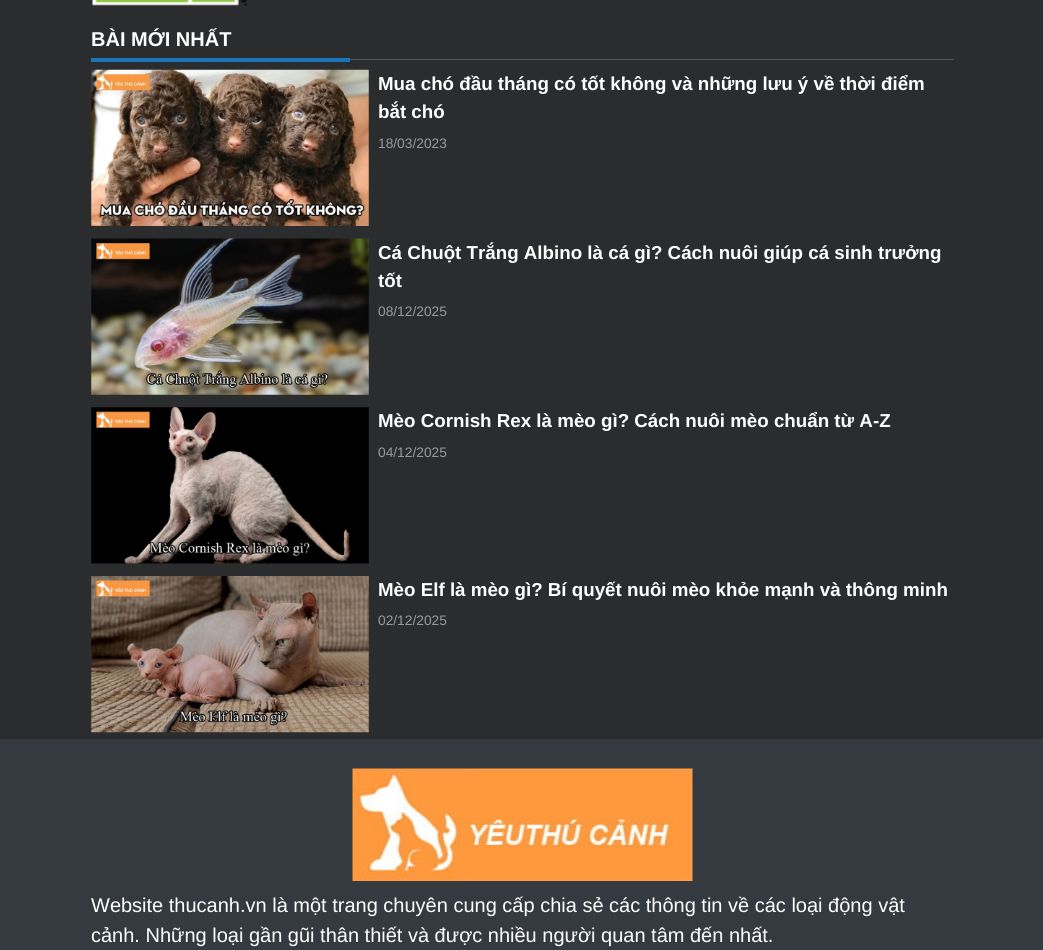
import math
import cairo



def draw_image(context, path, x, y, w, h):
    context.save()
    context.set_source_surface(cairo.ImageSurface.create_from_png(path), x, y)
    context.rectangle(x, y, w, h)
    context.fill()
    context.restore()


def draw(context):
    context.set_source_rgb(43 / 255, 44 / 255, 45 / 255)
    context.paint()
    draw_image(context, "images/1.png", 91, 0, 156, 6)
    context.set_source_rgb(27 / 255, 117 / 255, 187 / 255)
    context.rectangle(91, 58, 259, 4)
    context.fill()
    context.set_source_rgb(83 / 255, 84 / 255, 85 / 255)
    context.rectangle(350, 59, 604, 1)
    context.fill()
    draw_image(context, "images/2.png", 91, 69, 278, 157)
    draw_image(context, "images/3.png", 91, 238, 278, 157)
    draw_image(context, "images/4.png", 91, 407, 278, 157)
    draw_image(context, "images/5.png", 91, 576, 278, 157)
    context.set_source_rgb(52 / 255, 58 / 255, 64 / 255)
    context.rectangle(0, 739, 1043, 211)
    context.fill()
    draw_image(context, "images/6.png", 352, 768, 341, 113)
    context.select_font_face("Liberation Sans", cairo.FontSlant.NORMAL, cairo.FontWeight.BOLD)
    context.set_font_size(20)
    context.set_source_rgb(1, 1, 1)
    context.move_to(91, 46)
    context.show_text("BÀI MỚI NHẤT")
    context.set_font_size(18.75)
    context.move_to(378, 90)
    context.show_text("Mua chó đầu tháng có tốt không và những lưu ý về thời điểm")
    context.move_to(378, 118)
    context.show_text("bắt chó")
    context.select_font_face("Liberation Sans")
    context.set_font_size(13.75)
    context.set_source_rgb(153 / 255, 153 / 255, 153 / 255)
    context.move_to(378, 148)
    context.show_text("18/03/2023")
    context.select_font_face("Liberation Sans", cairo.FontSlant.NORMAL, cairo.FontWeight.BOLD)
    context.set_font_size(18.75)
    context.set_source_rgb(1, 1, 1)
    context.move_to(378, 259)
    context.show_text("Cá Chuột Trắng Albino là cá gì? Cách nuôi giúp cá sinh trưởng")
    context.move_to(378, 287)
    context.show_text("tốt")
    context.select_font_face("Liberation Sans")
    context.set_font_size(13.75)
    context.set_source_rgb(153 / 255, 153 / 255, 153 / 255)
    context.move_to(378, 316)
    context.show_text("08/12/2025")
    context.select_font_face("Liberation Sans", cairo.FontSlant.NORMAL, cairo.FontWeight.BOLD)
    context.set_font_size(18.75)
    context.set_source_rgb(1, 1, 1)
    context.move_to(378, 427)
    context.show_text("Mèo Cornish Rex là mèo gì? Cách nuôi mèo chuẩn từ A-Z")
    context.select_font_face("Liberation Sans")
    context.set_font_size(13.75)
    context.set_source_rgb(153 / 255, 153 / 255, 153 / 255)
    context.move_to(378, 457)
    context.show_text("04/12/2025")
    context.select_font_face("Liberation Sans", cairo.FontSlant.NORMAL, cairo.FontWeight.BOLD)
    context.set_font_size(18.75)
    context.set_source_rgb(1, 1, 1)
    context.move_to(378, 596)
    context.show_text("Mèo Elf là mèo gì? Bí quyết nuôi mèo khỏe mạnh và thông minh")
    context.select_font_face("Liberation Sans")
    context.set_font_size(13.75)
    context.set_source_rgb(153 / 255, 153 / 255, 153 / 255)
    context.move_to(378, 625)
    context.show_text("02/12/2025")
    context.set_font_size(20)
    context.set_source_rgb(1, 1, 1)
    context.move_to(91, 912)
    context.show_text("Website thucanh.vn là một trang chuyên cung cấp chia sẻ các thông tin về các loại động vật")
    context.move_to(91, 942)
    context.show_text("cảnh. Những loại gần gũi thân thiết và được nhiều người quan tâm đến nhất.")


surface = cairo.ImageSurface(cairo.Format.RGB24, 1043, 950)
context = cairo.Context(surface)
options = cairo.FontOptions()
options.set_hint_metrics(cairo.HintMetrics.OFF)
options.set_hint_style(cairo.HintStyle.NONE)
context.set_font_options(options)
context.set_miter_limit(4)
draw(context)
surface.write_to_png("out.png")
